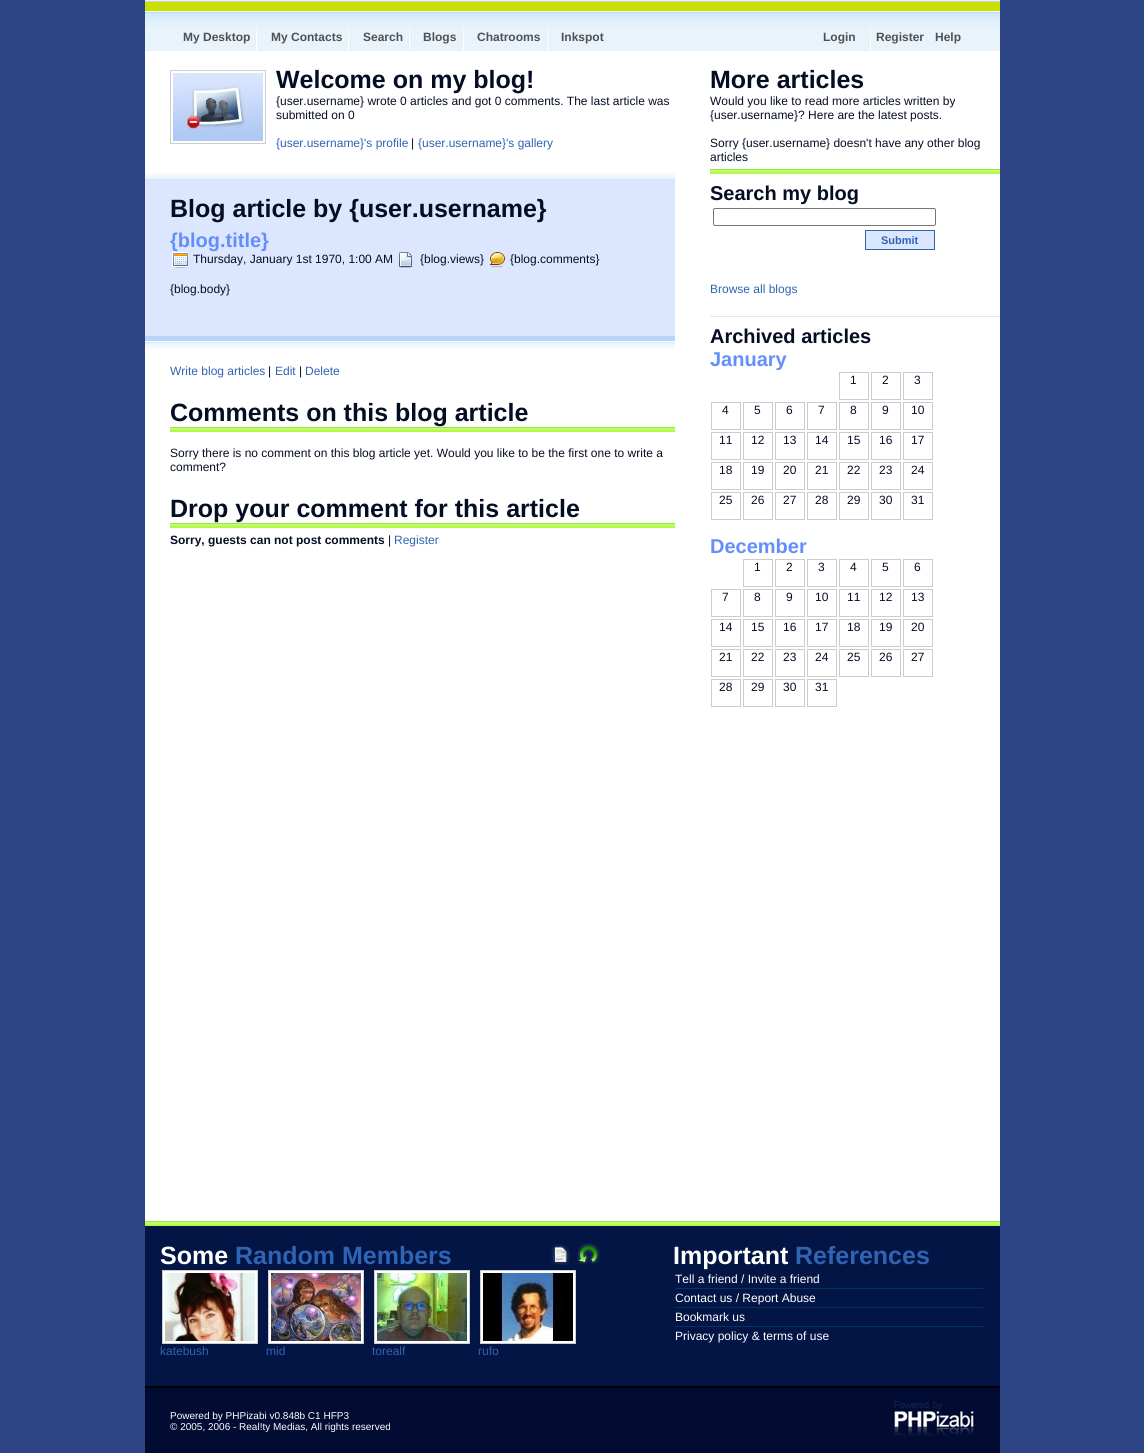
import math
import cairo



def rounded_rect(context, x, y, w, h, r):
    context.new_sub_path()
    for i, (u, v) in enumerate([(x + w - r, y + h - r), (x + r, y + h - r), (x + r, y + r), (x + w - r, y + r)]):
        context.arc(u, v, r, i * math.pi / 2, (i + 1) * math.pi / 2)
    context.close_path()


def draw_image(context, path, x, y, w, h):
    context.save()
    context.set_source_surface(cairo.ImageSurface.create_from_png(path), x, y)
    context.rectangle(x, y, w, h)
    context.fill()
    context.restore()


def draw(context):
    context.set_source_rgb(44 / 255, 67 / 255, 132 / 255)
    context.paint()
    draw_image(context, "images/1.png", 145, 0, 855, 51)
    draw_image(context, "images/2.png", 255, 25, 2, 26)
    draw_image(context, "images/2.png", 347, 25, 2, 26)
    draw_image(context, "images/2.png", 408, 25, 2, 26)
    draw_image(context, "images/2.png", 462, 25, 2, 26)
    draw_image(context, "images/2.png", 546, 25, 2, 26)
    draw_image(context, "images/2.png", 869, 25, 2, 26)
    context.set_source_rgb(1, 1, 1)
    context.rectangle(145, 51, 855, 1170)
    context.fill()
    context.rectangle(170.5, 70.5, 95, 73)
    context.set_source_rgb(206 / 255, 206 / 255, 206 / 255)
    context.set_line_width(1)
    context.stroke()
    draw_image(context, "images/3.png", 173, 73, 90, 68)
    draw_image(context, "images/4.png", 145, 172, 530, 8)
    context.set_source_rgb(220 / 255, 230 / 255, 1)
    context.rectangle(145, 180, 530, 14)
    context.fill()
    context.rectangle(145, 194, 530, 35)
    context.fill()
    context.rectangle(145, 229, 530, 107)
    context.fill()
    draw_image(context, "images/5.png", 172, 252, 16, 16)
    draw_image(context, "images/6.png", 398, 252, 15, 16)
    draw_image(context, "images/7.png", 489, 252, 16, 16)
    draw_image(context, "images/8.png", 145, 336, 530, 14)
    draw_image(context, "images/9.png", 170, 427, 505, 5)
    draw_image(context, "images/9.png", 170, 523, 505, 5)
    draw_image(context, "images/10.png", 710, 169, 290, 5)
    rounded_rect(context, 713.5, 208.5, 222, 17, 1.5)
    context.set_source_rgb(118 / 255, 118 / 255, 118 / 255)
    context.stroke()
    context.set_source_rgb(220 / 255, 230 / 255, 1)
    context.rectangle(865.5, 230.5, 69, 19)
    context.fill_preserve()
    context.set_source_rgb(47 / 255, 99 / 255, 179 / 255)
    context.stroke()
    context.set_source_rgb(229 / 255, 233 / 255, 236 / 255)
    context.rectangle(710, 316, 290, 1)
    context.fill()
    context.rectangle(839.5, 372.5, 29, 27)
    context.set_source_rgb(204 / 255, 204 / 255, 204 / 255)
    context.stroke()
    context.rectangle(871.5, 372.5, 29, 27)
    context.stroke()
    context.rectangle(903.5, 372.5, 29, 27)
    context.stroke()
    context.rectangle(711.5, 402.5, 29, 27)
    context.stroke()
    context.rectangle(743.5, 402.5, 29, 27)
    context.stroke()
    context.rectangle(775.5, 402.5, 29, 27)
    context.stroke()
    context.rectangle(807.5, 402.5, 29, 27)
    context.stroke()
    context.rectangle(839.5, 402.5, 29, 27)
    context.stroke()
    context.rectangle(871.5, 402.5, 29, 27)
    context.stroke()
    context.rectangle(903.5, 402.5, 29, 27)
    context.stroke()
    context.rectangle(711.5, 432.5, 29, 27)
    context.stroke()
    context.rectangle(743.5, 432.5, 29, 27)
    context.stroke()
    context.rectangle(775.5, 432.5, 29, 27)
    context.stroke()
    context.rectangle(807.5, 432.5, 29, 27)
    context.stroke()
    context.rectangle(839.5, 432.5, 29, 27)
    context.stroke()
    context.rectangle(871.5, 432.5, 29, 27)
    context.stroke()
    context.rectangle(903.5, 432.5, 29, 27)
    context.stroke()
    context.rectangle(711.5, 462.5, 29, 27)
    context.stroke()
    context.rectangle(743.5, 462.5, 29, 27)
    context.stroke()
    context.rectangle(775.5, 462.5, 29, 27)
    context.stroke()
    context.rectangle(807.5, 462.5, 29, 27)
    context.stroke()
    context.rectangle(839.5, 462.5, 29, 27)
    context.stroke()
    context.rectangle(871.5, 462.5, 29, 27)
    context.stroke()
    context.rectangle(903.5, 462.5, 29, 27)
    context.stroke()
    context.rectangle(711.5, 492.5, 29, 27)
    context.stroke()
    context.rectangle(743.5, 492.5, 29, 27)
    context.stroke()
    context.rectangle(775.5, 492.5, 29, 27)
    context.stroke()
    context.rectangle(807.5, 492.5, 29, 27)
    context.stroke()
    context.rectangle(839.5, 492.5, 29, 27)
    context.stroke()
    context.rectangle(871.5, 492.5, 29, 27)
    context.stroke()
    context.rectangle(903.5, 492.5, 29, 27)
    context.stroke()
    context.rectangle(743.5, 559.5, 29, 27)
    context.stroke()
    context.rectangle(775.5, 559.5, 29, 27)
    context.stroke()
    context.rectangle(807.5, 559.5, 29, 27)
    context.stroke()
    context.rectangle(839.5, 559.5, 29, 27)
    context.stroke()
    context.rectangle(871.5, 559.5, 29, 27)
    context.stroke()
    context.rectangle(903.5, 559.5, 29, 27)
    context.stroke()
    context.rectangle(711.5, 589.5, 29, 27)
    context.stroke()
    context.rectangle(743.5, 589.5, 29, 27)
    context.stroke()
    context.rectangle(775.5, 589.5, 29, 27)
    context.stroke()
    context.rectangle(807.5, 589.5, 29, 27)
    context.stroke()
    context.rectangle(839.5, 589.5, 29, 27)
    context.stroke()
    context.rectangle(871.5, 589.5, 29, 27)
    context.stroke()
    context.rectangle(903.5, 589.5, 29, 27)
    context.stroke()
    context.rectangle(711.5, 619.5, 29, 27)
    context.stroke()
    context.rectangle(743.5, 619.5, 29, 27)
    context.stroke()
    context.rectangle(775.5, 619.5, 29, 27)
    context.stroke()
    context.rectangle(807.5, 619.5, 29, 27)
    context.stroke()
    context.rectangle(839.5, 619.5, 29, 27)
    context.stroke()
    context.rectangle(871.5, 619.5, 29, 27)
    context.stroke()
    context.rectangle(903.5, 619.5, 29, 27)
    context.stroke()
    context.rectangle(711.5, 649.5, 29, 27)
    context.stroke()
    context.rectangle(743.5, 649.5, 29, 27)
    context.stroke()
    context.rectangle(775.5, 649.5, 29, 27)
    context.stroke()
    context.rectangle(807.5, 649.5, 29, 27)
    context.stroke()
    context.rectangle(839.5, 649.5, 29, 27)
    context.stroke()
    context.rectangle(871.5, 649.5, 29, 27)
    context.stroke()
    context.rectangle(903.5, 649.5, 29, 27)
    context.stroke()
    context.rectangle(711.5, 679.5, 29, 27)
    context.stroke()
    context.rectangle(743.5, 679.5, 29, 27)
    context.stroke()
    context.rectangle(775.5, 679.5, 29, 27)
    context.stroke()
    context.rectangle(807.5, 679.5, 29, 27)
    context.stroke()
    draw_image(context, "images/11.png", 145, 1221, 855, 5)
    context.set_source_rgb(3 / 255, 21 / 255, 69 / 255)
    context.rectangle(145, 1226, 855, 160)
    context.fill()
    draw_image(context, "images/12.png", 551, 1244, 19, 21)
    draw_image(context, "images/13.png", 577, 1243, 24, 22)
    context.set_source_rgb(1, 1, 1)
    context.rectangle(162.5, 1270.5, 95, 73)
    context.fill_preserve()
    context.set_source_rgb(206 / 255, 206 / 255, 206 / 255)
    context.stroke()
    draw_image(context, "images/14.png", 165, 1273, 90, 68)
    context.set_source_rgb(1, 1, 1)
    context.rectangle(268.5, 1270.5, 95, 73)
    context.fill_preserve()
    context.set_source_rgb(206 / 255, 206 / 255, 206 / 255)
    context.stroke()
    draw_image(context, "images/15.png", 271, 1273, 90, 68)
    context.set_source_rgb(1, 1, 1)
    context.rectangle(374.5, 1270.5, 95, 73)
    context.fill_preserve()
    context.set_source_rgb(206 / 255, 206 / 255, 206 / 255)
    context.stroke()
    draw_image(context, "images/16.png", 377, 1273, 90, 68)
    context.set_source_rgb(1, 1, 1)
    context.rectangle(480.5, 1270.5, 95, 73)
    context.fill_preserve()
    context.set_source_rgb(206 / 255, 206 / 255, 206 / 255)
    context.stroke()
    draw_image(context, "images/17.png", 483, 1273, 90, 68)
    context.set_source_rgb(0, 51 / 255, 102 / 255)
    context.rectangle(675, 1288, 308, 1)
    context.fill()
    context.rectangle(675, 1307, 308, 1)
    context.fill()
    context.rectangle(675, 1326, 308, 1)
    context.fill()
    context.set_source_rgb(0, 0, 0)
    context.rectangle(145, 1386, 855, 2)
    context.fill()
    context.set_source_rgb(2 / 255, 11 / 255, 50 / 255)
    context.rectangle(145, 1388, 855, 65)
    context.fill()
    draw_image(context, "images/18.png", 893, 1401, 82, 35)
    context.select_font_face("Liberation Sans", cairo.FontSlant.NORMAL, cairo.FontWeight.BOLD)
    context.set_font_size(12)
    context.set_source_rgb(81 / 255, 81 / 255, 81 / 255)
    context.move_to(183, 41)
    context.show_text("My Desktop")
    context.move_to(271, 41)
    context.show_text("My Contacts")
    context.move_to(363, 41)
    context.show_text("Search")
    context.move_to(423, 41)
    context.show_text("Blogs")
    context.move_to(477, 41)
    context.show_text("Chatrooms")
    context.move_to(561, 41)
    context.show_text("Inkspot")
    context.move_to(823, 41)
    context.show_text("Login")
    context.move_to(876, 41)
    context.show_text("Register")
    context.move_to(935, 41)
    context.show_text("Help")
    context.set_font_size(25)
    context.set_source_rgb(5 / 255, 13 / 255, 36 / 255)
    context.move_to(276, 88)
    context.show_text("Welcome on my blog!")
    context.select_font_face("Liberation Sans")
    context.set_font_size(12)
    context.move_to(276, 105)
    context.show_text("{user.username} wrote 0 articles and got 0 comments. The last article was")
    context.move_to(276, 119)
    context.show_text("submitted on 0")
    context.set_source_rgb(47 / 255, 99 / 255, 179 / 255)
    context.move_to(276, 147)
    context.show_text("{user.username}'s profile")
    context.set_source_rgb(5 / 255, 13 / 255, 36 / 255)
    context.move_to(411, 147)
    context.show_text("|")
    context.set_source_rgb(47 / 255, 99 / 255, 179 / 255)
    context.move_to(418, 147)
    context.show_text("{user.username}'s gallery")
    context.select_font_face("Liberation Sans", cairo.FontSlant.NORMAL, cairo.FontWeight.BOLD)
    context.set_font_size(25)
    context.set_source_rgb(5 / 255, 13 / 255, 36 / 255)
    context.move_to(170, 217)
    context.show_text("Blog article by {user.username}")
    context.set_font_size(20)
    context.set_source_rgb(101 / 255, 142 / 255, 253 / 255)
    context.move_to(170, 247)
    context.show_text("{blog.title}")
    context.select_font_face("Liberation Sans")
    context.set_font_size(12)
    context.set_source_rgb(5 / 255, 13 / 255, 36 / 255)
    context.move_to(193, 263)
    context.show_text("Thursday, January 1st 1970, 1:00 AM")
    context.move_to(420, 263)
    context.show_text("{blog.views}")
    context.move_to(510, 263)
    context.show_text("{blog.comments}")
    context.move_to(170, 293)
    context.show_text("{blog.body}")
    context.set_source_rgb(47 / 255, 99 / 255, 179 / 255)
    context.move_to(170, 375)
    context.show_text("Write blog articles")
    context.set_source_rgb(5 / 255, 13 / 255, 36 / 255)
    context.move_to(268, 375)
    context.show_text("|")
    context.set_source_rgb(47 / 255, 99 / 255, 179 / 255)
    context.move_to(275, 375)
    context.show_text("Edit")
    context.set_source_rgb(5 / 255, 13 / 255, 36 / 255)
    context.move_to(299, 375)
    context.show_text("|")
    context.set_source_rgb(47 / 255, 99 / 255, 179 / 255)
    context.move_to(305, 375)
    context.show_text("Delete")
    context.select_font_face("Liberation Sans", cairo.FontSlant.NORMAL, cairo.FontWeight.BOLD)
    context.set_font_size(25)
    context.set_source_rgb(5 / 255, 13 / 255, 36 / 255)
    context.move_to(170, 421)
    context.show_text("Comments on this blog article")
    context.select_font_face("Liberation Sans")
    context.set_font_size(12)
    context.move_to(170, 457)
    context.show_text("Sorry there is no comment on this blog article yet. Would you like to be the first one to write a")
    context.move_to(170, 471)
    context.show_text("comment?")
    context.select_font_face("Liberation Sans", cairo.FontSlant.NORMAL, cairo.FontWeight.BOLD)
    context.set_font_size(25)
    context.move_to(170, 517)
    context.show_text("Drop your comment for this article")
    context.set_font_size(12)
    context.move_to(170, 544)
    context.show_text("Sorry, guests can not post comments")
    context.select_font_face("Liberation Sans")
    context.move_to(388, 544)
    context.show_text("|")
    context.set_source_rgb(47 / 255, 99 / 255, 179 / 255)
    context.move_to(394, 544)
    context.show_text("Register")
    context.select_font_face("Liberation Sans", cairo.FontSlant.NORMAL, cairo.FontWeight.BOLD)
    context.set_font_size(25)
    context.set_source_rgb(5 / 255, 13 / 255, 36 / 255)
    context.move_to(710, 88)
    context.show_text("More articles")
    context.select_font_face("Liberation Sans")
    context.set_font_size(12)
    context.move_to(710, 105)
    context.show_text("Would you like to read more articles written by")
    context.move_to(710, 119)
    context.show_text("{user.username}? Here are the latest posts.")
    context.move_to(710, 147)
    context.show_text("Sorry {user.username} doesn't have any other blog")
    context.move_to(710, 161)
    context.show_text("articles")
    context.select_font_face("Liberation Sans", cairo.FontSlant.NORMAL, cairo.FontWeight.BOLD)
    context.set_font_size(20)
    context.move_to(710, 200)
    context.show_text("Search my blog")
    context.set_font_size(11)
    context.set_source_rgb(47 / 255, 99 / 255, 179 / 255)
    context.move_to(881, 244)
    context.show_text("Submit")
    context.select_font_face("Liberation Sans")
    context.set_font_size(12)
    context.move_to(710, 293)
    context.show_text("Browse all blogs")
    context.select_font_face("Liberation Sans", cairo.FontSlant.NORMAL, cairo.FontWeight.BOLD)
    context.set_font_size(20)
    context.set_source_rgb(5 / 255, 13 / 255, 36 / 255)
    context.move_to(710, 343)
    context.show_text("Archived articles")
    context.set_source_rgb(101 / 255, 142 / 255, 253 / 255)
    context.move_to(710, 366)
    context.show_text("January")
    context.select_font_face("Liberation Sans")
    context.set_font_size(12)
    context.set_source_rgb(5 / 255, 13 / 255, 36 / 255)
    context.move_to(850, 384)
    context.show_text("1")
    context.move_to(882, 384)
    context.show_text("2")
    context.move_to(914, 384)
    context.show_text("3")
    context.move_to(722, 414)
    context.show_text("4")
    context.move_to(754, 414)
    context.show_text("5")
    context.move_to(786, 414)
    context.show_text("6")
    context.move_to(818, 414)
    context.show_text("7")
    context.move_to(850, 414)
    context.show_text("8")
    context.move_to(882, 414)
    context.show_text("9")
    context.move_to(911, 414)
    context.show_text("10")
    context.move_to(719, 444)
    context.show_text("11")
    context.move_to(751, 444)
    context.show_text("12")
    context.move_to(783, 444)
    context.show_text("13")
    context.move_to(815, 444)
    context.show_text("14")
    context.move_to(847, 444)
    context.show_text("15")
    context.move_to(879, 444)
    context.show_text("16")
    context.move_to(911, 444)
    context.show_text("17")
    context.move_to(719, 474)
    context.show_text("18")
    context.move_to(751, 474)
    context.show_text("19")
    context.move_to(783, 474)
    context.show_text("20")
    context.move_to(815, 474)
    context.show_text("21")
    context.move_to(847, 474)
    context.show_text("22")
    context.move_to(879, 474)
    context.show_text("23")
    context.move_to(911, 474)
    context.show_text("24")
    context.move_to(719, 504)
    context.show_text("25")
    context.move_to(751, 504)
    context.show_text("26")
    context.move_to(783, 504)
    context.show_text("27")
    context.move_to(815, 504)
    context.show_text("28")
    context.move_to(847, 504)
    context.show_text("29")
    context.move_to(879, 504)
    context.show_text("30")
    context.move_to(911, 504)
    context.show_text("31")
    context.select_font_face("Liberation Sans", cairo.FontSlant.NORMAL, cairo.FontWeight.BOLD)
    context.set_font_size(20)
    context.set_source_rgb(101 / 255, 142 / 255, 253 / 255)
    context.move_to(710, 553)
    context.show_text("December")
    context.select_font_face("Liberation Sans")
    context.set_font_size(12)
    context.set_source_rgb(5 / 255, 13 / 255, 36 / 255)
    context.move_to(754, 571)
    context.show_text("1")
    context.move_to(786, 571)
    context.show_text("2")
    context.move_to(818, 571)
    context.show_text("3")
    context.move_to(850, 571)
    context.show_text("4")
    context.move_to(882, 571)
    context.show_text("5")
    context.move_to(914, 571)
    context.show_text("6")
    context.move_to(722, 601)
    context.show_text("7")
    context.move_to(754, 601)
    context.show_text("8")
    context.move_to(786, 601)
    context.show_text("9")
    context.move_to(815, 601)
    context.show_text("10")
    context.move_to(847, 601)
    context.show_text("11")
    context.move_to(879, 601)
    context.show_text("12")
    context.move_to(911, 601)
    context.show_text("13")
    context.move_to(719, 631)
    context.show_text("14")
    context.move_to(751, 631)
    context.show_text("15")
    context.move_to(783, 631)
    context.show_text("16")
    context.move_to(815, 631)
    context.show_text("17")
    context.move_to(847, 631)
    context.show_text("18")
    context.move_to(879, 631)
    context.show_text("19")
    context.move_to(911, 631)
    context.show_text("20")
    context.move_to(719, 661)
    context.show_text("21")
    context.move_to(751, 661)
    context.show_text("22")
    context.move_to(783, 661)
    context.show_text("23")
    context.move_to(815, 661)
    context.show_text("24")
    context.move_to(847, 661)
    context.show_text("25")
    context.move_to(879, 661)
    context.show_text("26")
    context.move_to(911, 661)
    context.show_text("27")
    context.move_to(719, 691)
    context.show_text("28")
    context.move_to(751, 691)
    context.show_text("29")
    context.move_to(783, 691)
    context.show_text("30")
    context.move_to(815, 691)
    context.show_text("31")
    context.select_font_face("Liberation Sans", cairo.FontSlant.NORMAL, cairo.FontWeight.BOLD)
    context.set_font_size(25)
    context.set_source_rgb(1, 1, 1)
    context.move_to(160, 1264)
    context.show_text("Some")
    context.set_source_rgb(47 / 255, 99 / 255, 179 / 255)
    context.move_to(235, 1264)
    context.show_text("Random Members")
    context.select_font_face("Liberation Sans")
    context.set_font_size(12)
    context.move_to(160, 1355)
    context.show_text("katebush")
    context.move_to(266, 1355)
    context.show_text("mid")
    context.move_to(372, 1355)
    context.show_text("torealf")
    context.move_to(478, 1355)
    context.show_text("rufo")
    context.select_font_face("Liberation Sans", cairo.FontSlant.NORMAL, cairo.FontWeight.BOLD)
    context.set_font_size(25)
    context.set_source_rgb(1, 1, 1)
    context.move_to(673, 1264)
    context.show_text("Important")
    context.set_source_rgb(47 / 255, 99 / 255, 179 / 255)
    context.move_to(795, 1264)
    context.show_text("References")
    context.select_font_face("Liberation Sans")
    context.set_font_size(12)
    context.set_source_rgb(1, 1, 1)
    context.move_to(675, 1283)
    context.show_text("Tell a friend / Invite a friend")
    context.move_to(675, 1302)
    context.show_text("Contact us / Report Abuse")
    context.move_to(675, 1321)
    context.show_text("Bookmark us")
    context.move_to(675, 1340)
    context.show_text("Privacy policy & terms of use")
    context.set_font_size(10)
    context.move_to(170, 1419)
    context.show_text("Powered by PHPizabi v0.848b C1 HFP3")
    context.move_to(170, 1430)
    context.show_text("© 2005, 2006 - Real!ty Medias, All rights reserved")


surface = cairo.ImageSurface(cairo.Format.RGB24, 1144, 1453)
context = cairo.Context(surface)
options = cairo.FontOptions()
options.set_hint_metrics(cairo.HintMetrics.OFF)
options.set_hint_style(cairo.HintStyle.NONE)
context.set_font_options(options)
context.set_miter_limit(4)
draw(context)
surface.write_to_png("out.png")
